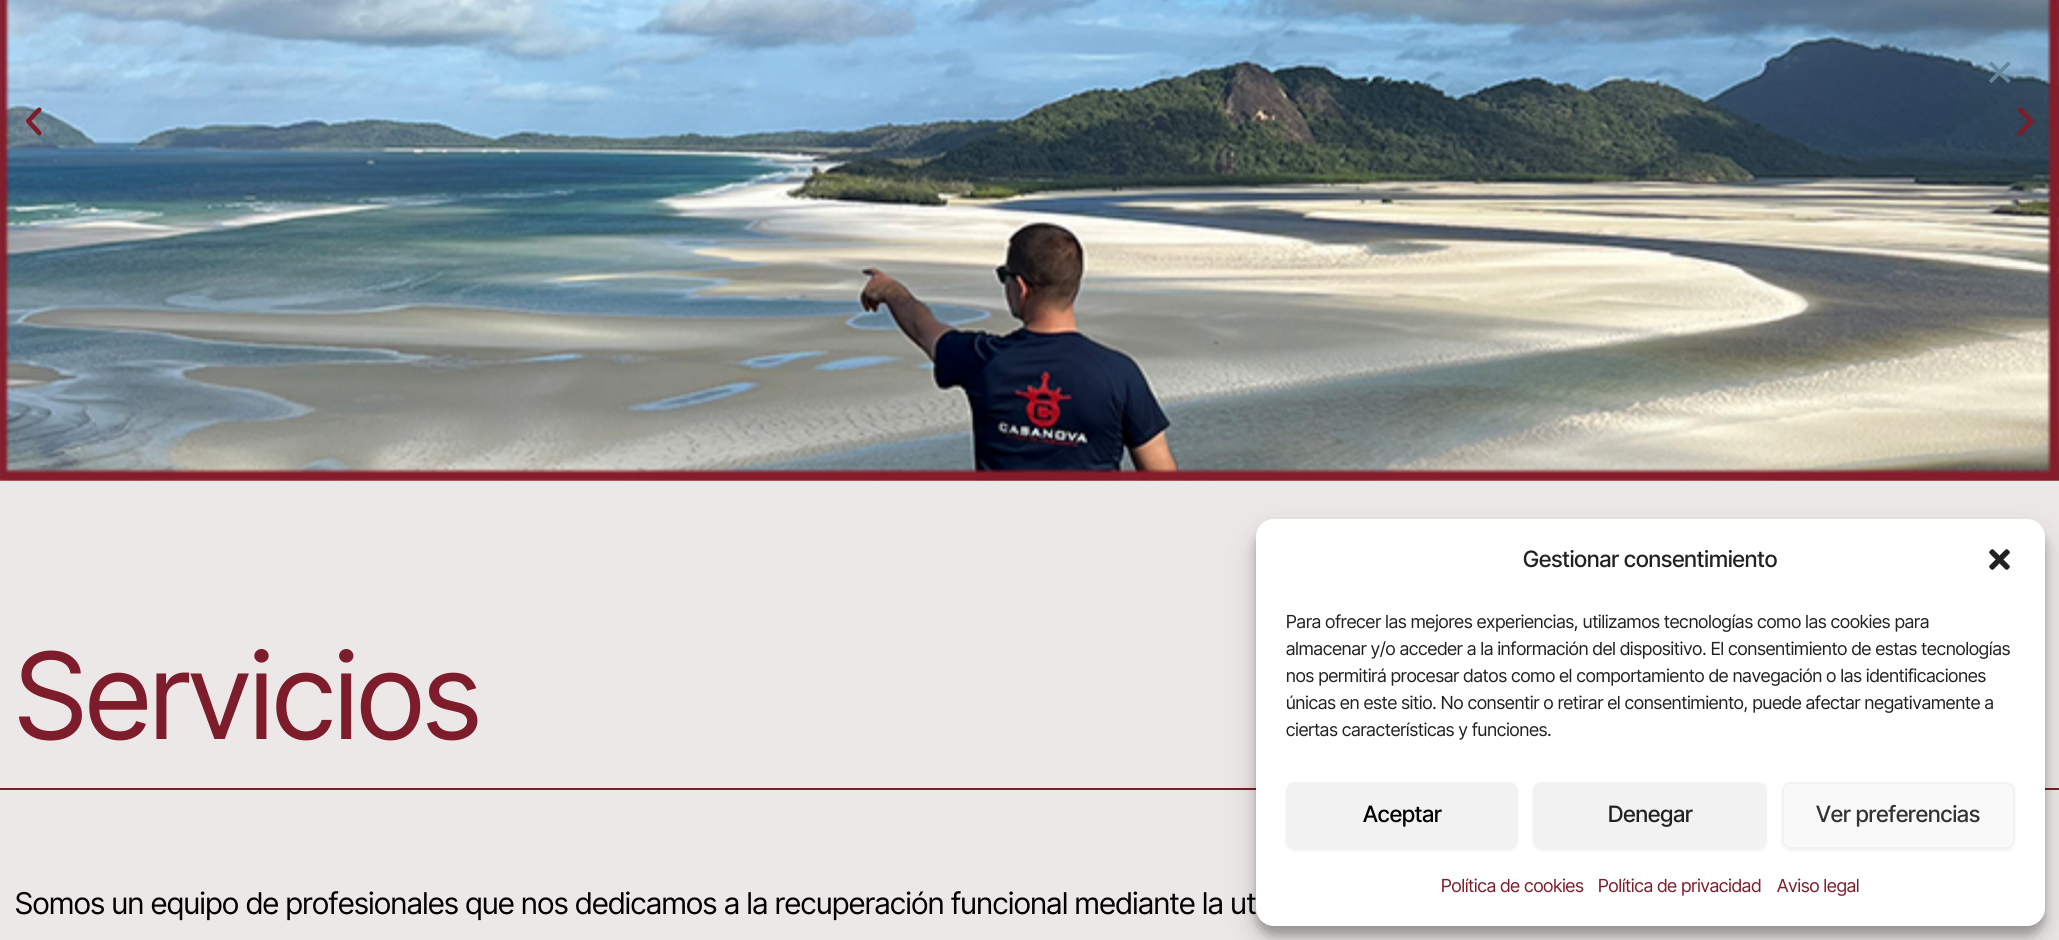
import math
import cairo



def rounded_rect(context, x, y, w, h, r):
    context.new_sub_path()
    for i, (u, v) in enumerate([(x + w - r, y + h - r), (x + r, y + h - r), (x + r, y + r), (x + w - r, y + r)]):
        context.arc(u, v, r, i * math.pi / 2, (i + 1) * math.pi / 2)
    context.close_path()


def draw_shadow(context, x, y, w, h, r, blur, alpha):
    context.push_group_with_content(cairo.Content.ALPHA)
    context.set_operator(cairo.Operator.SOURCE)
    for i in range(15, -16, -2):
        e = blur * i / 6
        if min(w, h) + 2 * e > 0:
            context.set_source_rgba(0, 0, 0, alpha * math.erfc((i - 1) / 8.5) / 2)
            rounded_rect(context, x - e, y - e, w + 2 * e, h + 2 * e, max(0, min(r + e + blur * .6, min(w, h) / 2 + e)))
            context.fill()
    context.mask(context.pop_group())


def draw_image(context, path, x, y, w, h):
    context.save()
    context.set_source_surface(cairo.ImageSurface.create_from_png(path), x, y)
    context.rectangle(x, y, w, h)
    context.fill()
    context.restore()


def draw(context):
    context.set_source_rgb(236 / 255, 232 / 255, 232 / 255)
    context.paint()
    draw_image(context, "images/1.png", 0, 0, 2059, 481)
    draw_image(context, "images/2.png", 26, 107, 16, 29)
    draw_image(context, "images/3.png", 2017, 107, 17, 29)
    context.set_source_rgb(125 / 255, 28 / 255, 42 / 255)
    context.rectangle(0, 788, 2059, 2)
    context.fill()
    context.set_source_rgb(0, 0, 0)
    draw_shadow(context, 1256, 528, 789, 407, 18, 4.5, 0.23)
    draw_shadow(context, 1256, 534, 789, 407, 18, 15, 0.19)
    context.set_source_rgb(1, 1, 1)
    rounded_rect(context, 1256, 519, 789, 407, 18)
    context.fill()
    draw_image(context, "images/4.png", 1989, 549, 21, 21)
    context.set_source_rgb(0, 0, 0)
    draw_shadow(context, 1286, 783, 232, 68, 9, 1.5, 0.05)
    context.set_source_rgb(242 / 255, 242 / 255, 242 / 255)
    rounded_rect(context, 1286, 782, 232, 67, 9)
    context.fill()
    context.set_source_rgb(0, 0, 0)
    draw_shadow(context, 1533, 783, 234, 68, 9, 1.5, 0.05)
    context.set_source_rgb(242 / 255, 242 / 255, 242 / 255)
    rounded_rect(context, 1533, 782, 234, 67, 9)
    context.fill()
    context.set_source_rgb(0, 0, 0)
    draw_shadow(context, 1782, 783, 233, 68, 9, 1.5, 0.05)
    context.set_source_rgb(249 / 255, 249 / 255, 249 / 255)
    rounded_rect(context, 1783, 783, 231, 65, 8)
    context.fill_preserve()
    context.set_source_rgb(242 / 255, 242 / 255, 242 / 255)
    context.stroke()
    context.select_font_face("Inter Tight")
    context.set_font_size(48)
    context.set_source_rgb(101 / 255, 134 / 255, 157 / 255)
    context.move_to(1985, 86)
    context.show_text("×")
    context.set_font_size(120)
    context.set_source_rgb(125 / 255, 28 / 255, 42 / 255)
    context.move_to(15, 739)
    context.show_text("Servicios")
    context.set_font_size(30)
    context.set_source_rgb(0, 0, 0)
    context.move_to(15, 914)
    context.show_text("Somos un equipo de profesionales que nos dedicamos a la recuperación funcional mediante la ut")
    context.select_font_face("Inter Tight Medium")
    context.set_font_size(22.5)
    context.set_source_rgb(34 / 255, 34 / 255, 34 / 255)
    context.move_to(1523, 567)
    context.show_text("Gestionar consentimiento")
    context.select_font_face("Inter Tight")
    context.set_font_size(18)
    context.move_to(1286, 628)
    context.show_text("Para ofrecer las mejores experiencias, utilizamos tecnologías como las cookies para")
    context.move_to(1286, 655)
    context.show_text("almacenar y/o acceder a la información del dispositivo. El consentimiento de estas tecnologías")
    context.move_to(1286, 682)
    context.show_text("nos permitirá procesar datos como el comportamiento de navegación o las identificaciones")
    context.move_to(1286, 709)
    context.show_text("únicas en este sitio. No consentir o retirar el consentimiento, puede afectar negativamente a")
    context.move_to(1286, 736)
    context.show_text("ciertas características y funciones.")
    context.select_font_face("Inter Tight Medium")
    context.set_font_size(22.5)
    context.set_source_rgb(0, 0, 0)
    context.move_to(1363, 822)
    context.show_text("Aceptar")
    context.set_source_rgb(34 / 255, 34 / 255, 34 / 255)
    context.move_to(1608, 822)
    context.show_text("Denegar")
    context.set_source_rgb(51 / 255, 51 / 255, 51 / 255)
    context.move_to(1816, 822)
    context.show_text("Ver preferencias")
    context.select_font_face("Inter Tight")
    context.set_font_size(18)
    context.set_source_rgb(125 / 255, 28 / 255, 42 / 255)
    context.move_to(1441, 892)
    context.show_text("Política de cookies")
    context.move_to(1598, 892)
    context.show_text("Política de privacidad")
    context.move_to(1777, 892)
    context.show_text("Aviso legal")


surface = cairo.ImageSurface(cairo.Format.RGB24, 2059, 940)
context = cairo.Context(surface)
options = cairo.FontOptions()
options.set_hint_metrics(cairo.HintMetrics.OFF)
options.set_hint_style(cairo.HintStyle.NONE)
context.set_font_options(options)
context.set_miter_limit(4)
draw(context)
surface.write_to_png("out.png")
